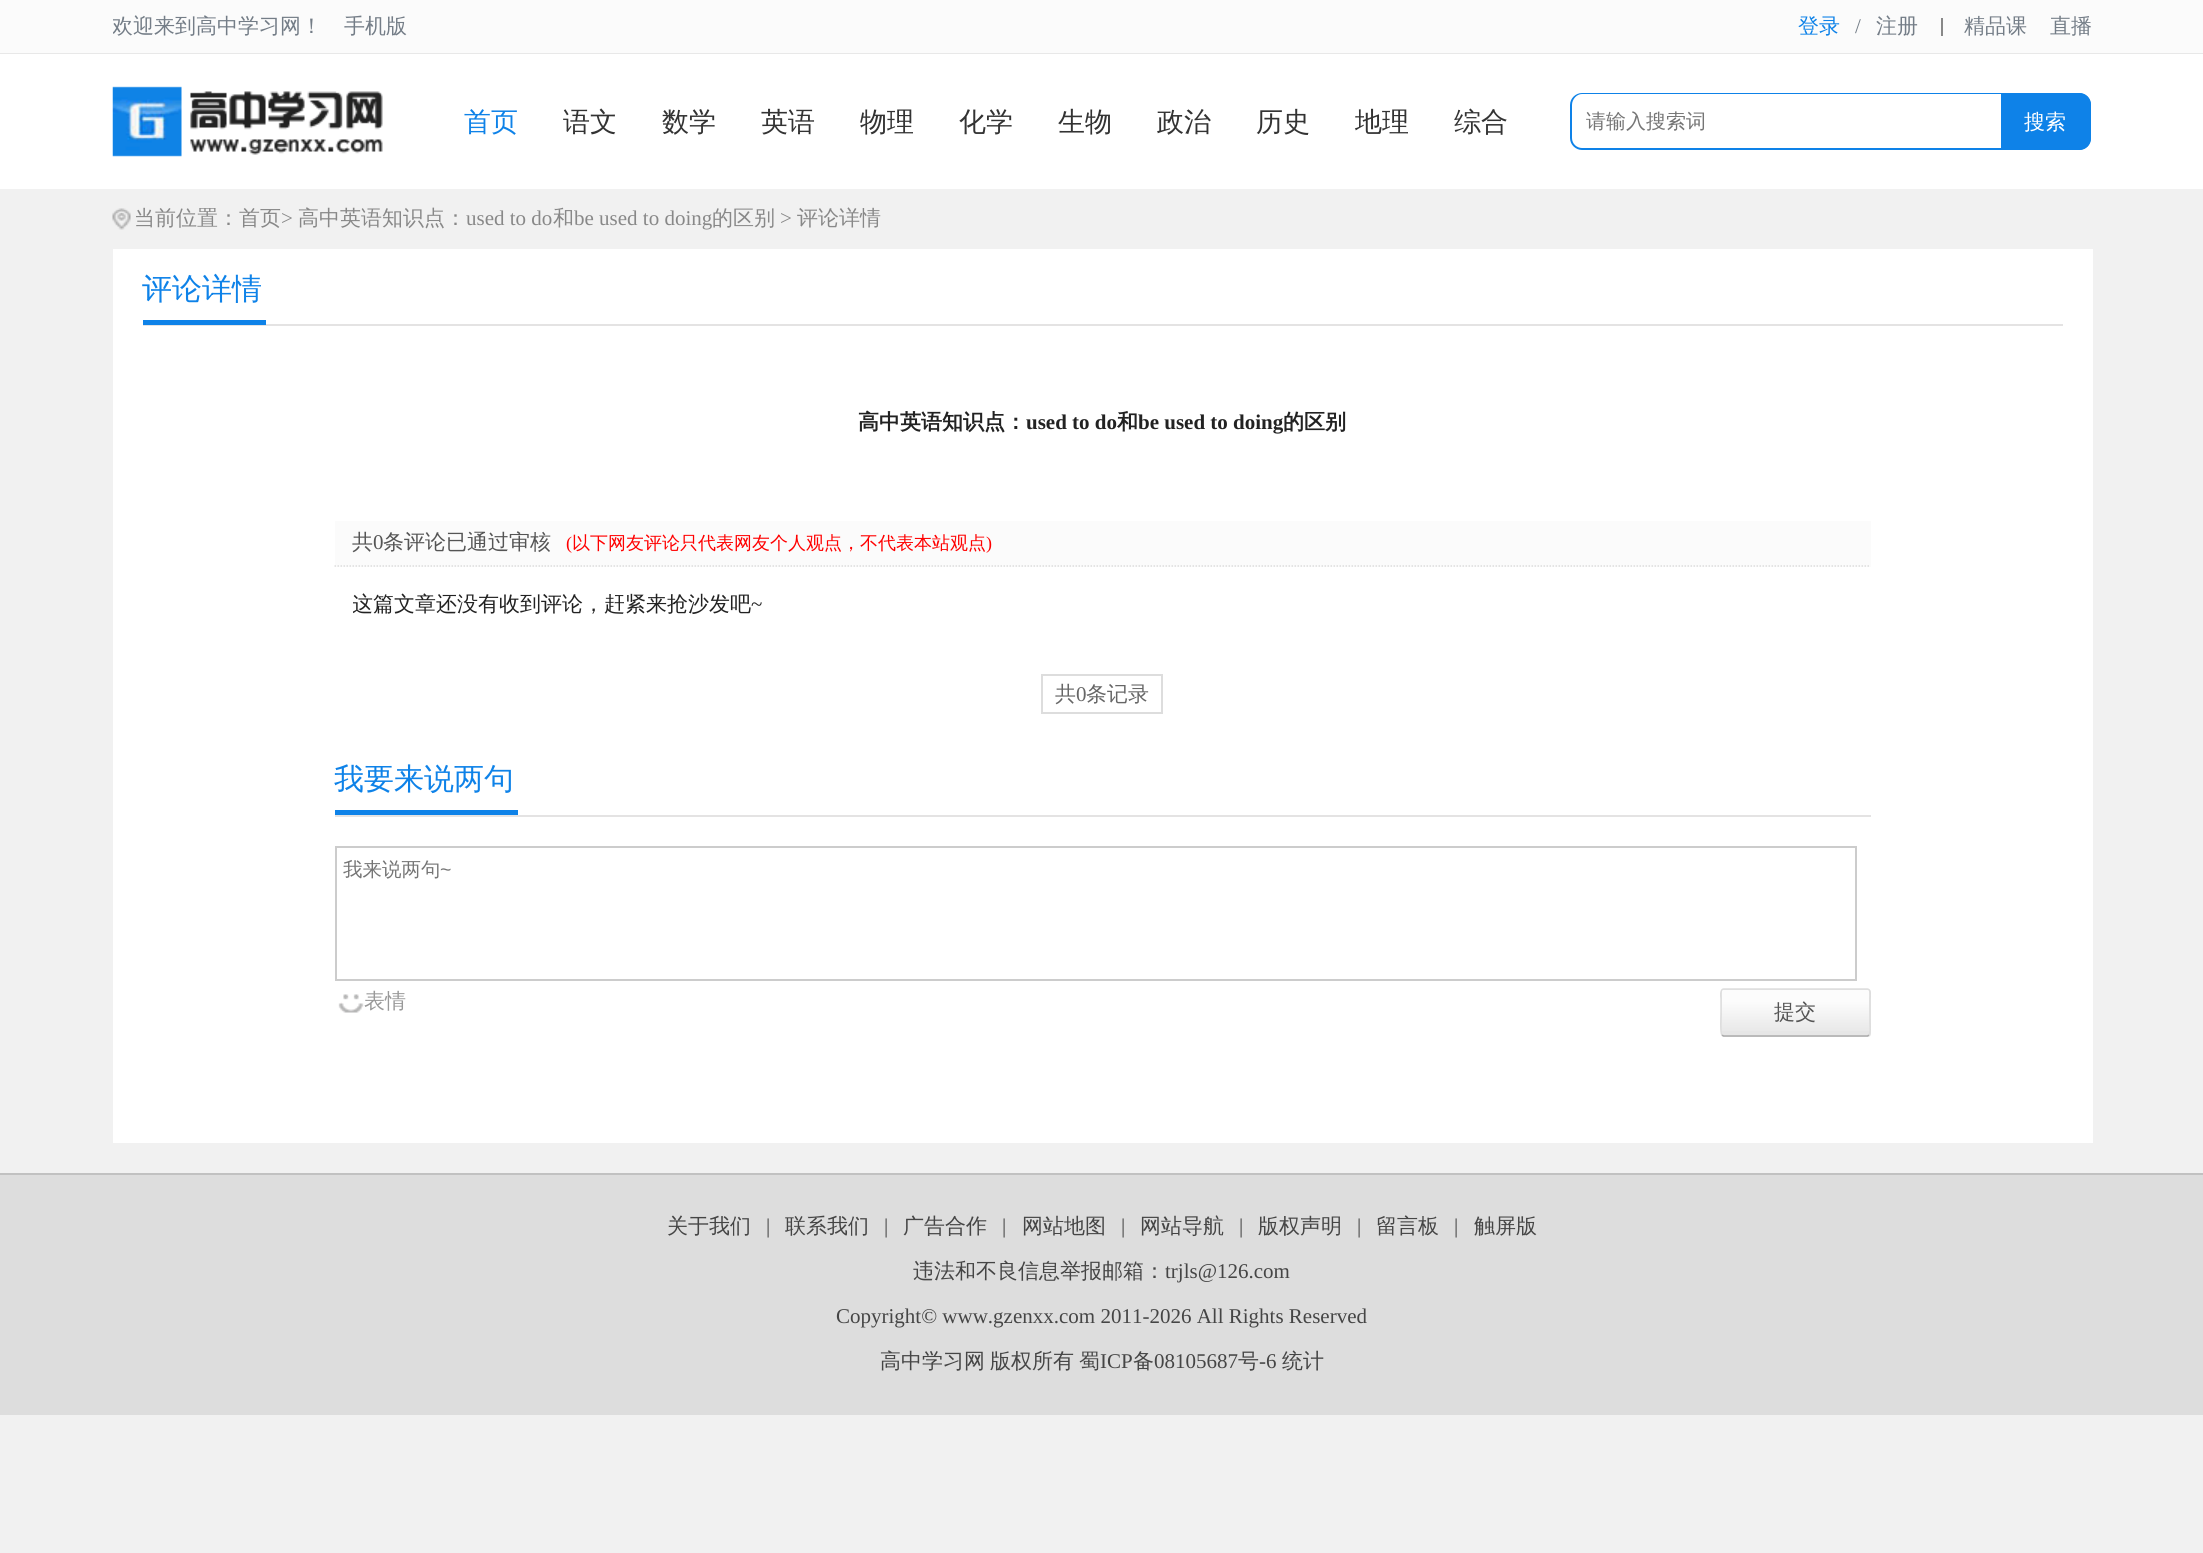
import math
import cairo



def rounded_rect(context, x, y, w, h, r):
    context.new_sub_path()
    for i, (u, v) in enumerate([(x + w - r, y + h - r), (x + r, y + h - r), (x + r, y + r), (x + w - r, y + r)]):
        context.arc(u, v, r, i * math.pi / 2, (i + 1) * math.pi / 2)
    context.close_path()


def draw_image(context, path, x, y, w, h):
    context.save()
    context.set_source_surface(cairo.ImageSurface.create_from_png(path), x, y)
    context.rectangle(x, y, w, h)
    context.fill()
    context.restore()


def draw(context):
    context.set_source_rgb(241 / 255, 241 / 255, 241 / 255)
    context.paint()
    context.set_source_rgb(251 / 255, 251 / 255, 251 / 255)
    context.rectangle(0, 0, 2203, 53)
    context.fill()
    context.set_source_rgb(232 / 255, 232 / 255, 232 / 255)
    context.rectangle(0, 53, 2203, 1)
    context.fill()
    context.set_source_rgb(136 / 255, 136 / 255, 136 / 255)
    context.rectangle(1941, 18, 2, 18)
    context.fill()
    context.set_source_rgb(1, 1, 1)
    context.rectangle(0, 54, 2203, 135)
    context.fill()
    draw_image(context, "images/1.png", 112, 86, 271, 71)
    context.set_source_rgb(14 / 255, 130 / 255, 232 / 255)
    context.set_fill_rule(cairo.FillRule.EVEN_ODD)
    context.new_path()
    context.move_to(1582, 93)
    context.line_to(2001, 93)
    context.line_to(2001, 150)
    context.line_to(1582, 150)
    context.curve_to(1576, 150, 1570, 145, 1570, 138)
    context.line_to(1570, 105)
    context.curve_to(1570, 98, 1576, 93, 1582, 93)
    context.close_path()
    context.move_to(1582, 94)
    context.line_to(2001, 94)
    context.line_to(2001, 148)
    context.line_to(1582, 148)
    context.curve_to(1577, 148, 1572, 144, 1572, 138)
    context.line_to(1572, 105)
    context.curve_to(1572, 99, 1577, 94, 1582, 94)
    context.close_path()
    context.fill()
    context.new_path()
    context.move_to(2001, 93)
    context.line_to(2079, 93)
    context.curve_to(2085.5, 93, 2091, 98.5, 2091, 105)
    context.line_to(2091, 138)
    context.curve_to(2091, 144.5, 2085.5, 150, 2079, 150)
    context.line_to(2001, 150)
    context.close_path()
    context.fill()
    context.new_path()
    context.move_to(2001, 93)
    context.line_to(2079, 93)
    context.curve_to(2086, 93, 2091, 98, 2091, 105)
    context.line_to(2091, 138)
    context.curve_to(2091, 145, 2086, 150, 2079, 150)
    context.line_to(2001, 150)
    context.close_path()
    context.move_to(2001, 94)
    context.line_to(2079, 94)
    context.curve_to(2085, 94, 2090, 99, 2090, 105)
    context.line_to(2090, 138)
    context.curve_to(2090, 144, 2085, 148, 2079, 148)
    context.line_to(2001, 148)
    context.close_path()
    context.fill()
    draw_image(context, "images/2.png", 112, 208, 19, 22)
    context.set_source_rgb(1, 1, 1)
    context.rectangle(113, 249, 1980, 894)
    context.fill()
    context.set_source_rgb(228 / 255, 227 / 255, 227 / 255)
    context.rectangle(143, 324, 1920, 2)
    context.fill()
    context.set_source_rgb(14 / 255, 130 / 255, 232 / 255)
    context.rectangle(143, 320, 123, 5)
    context.fill()
    context.set_source_rgb(251 / 255, 251 / 255, 251 / 255)
    context.rectangle(335, 521, 1536, 46)
    context.fill()
    context.new_path()
    context.move_to(334.5, 566)
    context.line_to(1870.5, 566)
    context.set_source_rgb(221 / 255, 221 / 255, 221 / 255)
    context.set_line_width(1.5)
    context.set_dash([1.5, 1.5])
    context.stroke()
    context.rectangle(1042, 675, 120, 38)
    context.set_line_width(2)
    context.set_dash([])
    context.stroke()
    context.set_source_rgb(228 / 255, 227 / 255, 227 / 255)
    context.rectangle(335, 815, 1536, 2)
    context.fill()
    context.set_source_rgb(14 / 255, 130 / 255, 232 / 255)
    context.rectangle(335, 810, 183, 5)
    context.fill()
    context.rectangle(336, 847, 1520, 133)
    context.set_source_rgb(204 / 255, 204 / 255, 204 / 255)
    context.stroke()
    draw_image(context, "images/3.png", 338, 994, 26, 19)
    context.set_source_rgb(230 / 255, 230 / 255, 230 / 255)
    rounded_rect(context, 1721, 989, 150, 48, 3)
    context.fill()
    gradient = cairo.LinearGradient(1796, 990, 1796, 1035)
    gradient.add_color_stop_rgba(0, 252 / 255, 252 / 255, 252 / 255, 1)
    gradient.add_color_stop_rgba(0.25, 252 / 255, 252 / 255, 252 / 255, 1)
    gradient.add_color_stop_rgba(1, 230 / 255, 230 / 255, 230 / 255, 1)
    context.set_source(gradient)
    context.rectangle(1722, 990, 147, 41)
    context.fill()
    context.new_path()
    context.move_to(1869, 1035)
    context.line_to(1867.5, 1036)
    context.line_to(1723.5, 1036)
    context.line_to(1722, 1035)
    context.set_source_rgb(170 / 255, 170 / 255, 170 / 255)
    context.set_line_width(1.5)
    context.stroke()
    context.new_path()
    context.move_to(1722, 1035)
    context.curve_to(1720, 1033.5, 1721, 1015.5, 1721, 1012.5)
    context.line_to(1721, 998.5)
    context.curve_to(1721, 998, 1719.5, 989.5, 1723.5, 989)
    context.line_to(1867.5, 989)
    context.curve_to(1871.5, 989.5, 1870, 998, 1870, 998.5)
    context.line_to(1870, 1019.5)
    context.curve_to(1870, 1022, 1871, 1033.5, 1869, 1035)
    context.set_source_rgb(221 / 255, 221 / 255, 221 / 255)
    context.stroke()
    context.rectangle(0, 1175, 2203, 240)
    context.fill()
    context.set_source_rgb(193 / 255, 193 / 255, 193 / 255)
    context.rectangle(0, 1173, 2203, 2)
    context.fill()
    context.save()
    context.set_fill_rule(cairo.FillRule.WINDING)
    context.rectangle(113, 0, 1980, 53)
    context.clip()
    context.select_font_face("WenQuanYi Zen Hei Medium")
    context.set_font_size(21)
    context.set_source_rgb(116 / 255, 125 / 255, 135 / 255)
    context.move_to(112, 33)
    context.show_text("欢迎来到高中学习网！")
    context.restore()
    context.select_font_face("WenQuanYi Zen Hei Medium")
    context.set_font_size(21)
    context.set_source_rgb(116 / 255, 125 / 255, 135 / 255)
    context.move_to(344, 33)
    context.show_text("手机版")
    context.set_source_rgb(14 / 255, 130 / 255, 232 / 255)
    context.move_to(1798, 33)
    context.show_text("登录")
    context.select_font_face("Liberation Serif")
    context.set_source_rgb(116 / 255, 125 / 255, 135 / 255)
    context.move_to(1855, 33)
    context.show_text("/")
    context.select_font_face("WenQuanYi Zen Hei Medium")
    context.move_to(1876, 33)
    context.show_text("注册")
    context.move_to(1964, 33)
    context.show_text("精品课")
    context.move_to(2050, 33)
    context.show_text("直播")
    context.set_font_size(27)
    context.set_source_rgb(14 / 255, 130 / 255, 232 / 255)
    context.move_to(464, 131)
    context.show_text("首页")
    context.set_source_rgb(51 / 255, 51 / 255, 51 / 255)
    context.move_to(563, 131)
    context.show_text("语文")
    context.move_to(662, 131)
    context.show_text("数学")
    context.move_to(761, 131)
    context.show_text("英语")
    context.move_to(860, 131)
    context.show_text("物理")
    context.move_to(959, 131)
    context.show_text("化学")
    context.move_to(1058, 131)
    context.show_text("生物")
    context.move_to(1157, 131)
    context.show_text("政治")
    context.move_to(1256, 131)
    context.show_text("历史")
    context.move_to(1355, 131)
    context.show_text("地理")
    context.move_to(1454, 131)
    context.show_text("综合")
    context.set_font_size(20)
    context.set_source_rgb(117 / 255, 117 / 255, 117 / 255)
    context.move_to(1586, 128)
    context.show_text("请输入搜索词")
    context.set_font_size(21)
    context.set_source_rgb(1, 1, 1)
    context.move_to(2024, 129)
    context.show_text("搜索")
    context.set_source_rgb(136 / 255, 136 / 255, 136 / 255)
    context.move_to(134, 225)
    context.show_text("当前位置：首页")
    context.select_font_face("Liberation Serif")
    context.move_to(281, 225)
    context.show_text(">")
    context.select_font_face("WenQuanYi Zen Hei Medium")
    context.move_to(298, 225)
    context.show_text("高中英语知识点：")
    context.select_font_face("Liberation Serif")
    context.move_to(466, 225)
    context.show_text("used to do")
    context.select_font_face("WenQuanYi Zen Hei Medium")
    context.move_to(553, 225)
    context.show_text("和")
    context.select_font_face("Liberation Serif")
    context.move_to(574, 225)
    context.show_text("be used to doing")
    context.select_font_face("WenQuanYi Zen Hei Medium")
    context.move_to(712, 225)
    context.show_text("的区别")
    context.select_font_face("Liberation Serif")
    context.move_to(780, 225)
    context.show_text(">")
    context.select_font_face("WenQuanYi Zen Hei Medium")
    context.move_to(797, 225)
    context.show_text("评论详情")
    context.set_font_size(30)
    context.set_source_rgb(14 / 255, 130 / 255, 232 / 255)
    context.move_to(142, 299)
    context.show_text("评论详情")
    context.select_font_face("WenQuanYi Zen Hei", cairo.FontSlant.NORMAL, cairo.FontWeight.BOLD)
    context.set_font_size(21)
    context.set_source_rgb(34 / 255, 34 / 255, 34 / 255)
    context.move_to(858, 429)
    context.show_text("高中英语知识点：")
    context.select_font_face("Liberation Serif", cairo.FontSlant.NORMAL, cairo.FontWeight.BOLD)
    context.move_to(1026, 429)
    context.show_text("used to do")
    context.select_font_face("WenQuanYi Zen Hei", cairo.FontSlant.NORMAL, cairo.FontWeight.BOLD)
    context.move_to(1117, 429)
    context.show_text("和")
    context.select_font_face("Liberation Serif", cairo.FontSlant.NORMAL, cairo.FontWeight.BOLD)
    context.move_to(1138, 429)
    context.show_text("be used to doing")
    context.select_font_face("WenQuanYi Zen Hei", cairo.FontSlant.NORMAL, cairo.FontWeight.BOLD)
    context.move_to(1283, 429)
    context.show_text("的区别")
    context.select_font_face("WenQuanYi Zen Hei Medium")
    context.set_source_rgb(85 / 255, 85 / 255, 85 / 255)
    context.move_to(352, 549)
    context.show_text("共")
    context.select_font_face("Liberation Serif")
    context.move_to(373, 549)
    context.show_text("0")
    context.select_font_face("WenQuanYi Zen Hei Medium")
    context.move_to(383, 549)
    context.show_text("条评论已通过审核")
    context.select_font_face("Liberation Serif")
    context.set_font_size(18)
    context.set_source_rgb(1, 0, 0)
    context.move_to(566, 549)
    context.show_text("(")
    context.select_font_face("WenQuanYi Zen Hei Medium")
    context.move_to(572, 549)
    context.show_text("以下网友评论只代表网友个人观点，不代表本站观点")
    context.select_font_face("Liberation Serif")
    context.move_to(986, 549)
    context.show_text(")")
    context.save()
    context.set_fill_rule(cairo.FillRule.WINDING)
    context.rectangle(353, 567, 1500, 75)
    context.clip()
    context.select_font_face("WenQuanYi Zen Hei Medium")
    context.set_font_size(21)
    context.set_source_rgb(34 / 255, 34 / 255, 34 / 255)
    context.move_to(352, 611)
    context.show_text("这篇文章还没有收到评论，赶紧来抢沙发吧")
    context.restore()
    context.set_font_size(21)
    context.set_source_rgb(34 / 255, 34 / 255, 34 / 255)
    context.move_to(751, 611)
    context.show_text("~")
    context.select_font_face("WenQuanYi Zen Hei Medium")
    context.set_source_rgb(102 / 255, 102 / 255, 102 / 255)
    context.move_to(1055, 701)
    context.show_text("共")
    context.select_font_face("Liberation Serif")
    context.move_to(1076, 701)
    context.show_text("0")
    context.select_font_face("WenQuanYi Zen Hei Medium")
    context.move_to(1086, 701)
    context.show_text("条记录")
    context.set_font_size(30)
    context.set_source_rgb(14 / 255, 130 / 255, 232 / 255)
    context.move_to(334, 789)
    context.show_text("我要来说两句")
    context.set_font_size(19.5)
    context.set_source_rgb(117 / 255, 117 / 255, 117 / 255)
    context.move_to(343, 876)
    context.show_text("我来说两句")
    context.select_font_face("Liberation Sans")
    context.move_to(440, 876)
    context.show_text("~")
    context.select_font_face("WenQuanYi Zen Hei Medium")
    context.set_font_size(21)
    context.set_source_rgb(153 / 255, 153 / 255, 153 / 255)
    context.move_to(364, 1008)
    context.show_text("表情")
    context.set_source_rgb(85 / 255, 85 / 255, 85 / 255)
    context.move_to(1774, 1019)
    context.show_text("提交")
    context.set_source_rgb(69 / 255, 69 / 255, 69 / 255)
    context.move_to(667, 1233)
    context.show_text("关于我们")
    context.select_font_face("Liberation Serif")
    context.move_to(766, 1233)
    context.show_text("|")
    context.select_font_face("WenQuanYi Zen Hei Medium")
    context.move_to(785, 1233)
    context.show_text("联系我们")
    context.select_font_face("Liberation Serif")
    context.move_to(884, 1233)
    context.show_text("|")
    context.select_font_face("WenQuanYi Zen Hei Medium")
    context.move_to(903, 1233)
    context.show_text("广告合作")
    context.select_font_face("Liberation Serif")
    context.move_to(1002, 1233)
    context.show_text("|")
    context.select_font_face("WenQuanYi Zen Hei Medium")
    context.move_to(1022, 1233)
    context.show_text("网站地图")
    context.select_font_face("Liberation Serif")
    context.move_to(1121, 1233)
    context.show_text("|")
    context.select_font_face("WenQuanYi Zen Hei Medium")
    context.move_to(1140, 1233)
    context.show_text("网站导航")
    context.select_font_face("Liberation Serif")
    context.move_to(1239, 1233)
    context.show_text("|")
    context.select_font_face("WenQuanYi Zen Hei Medium")
    context.move_to(1258, 1233)
    context.show_text("版权声明")
    context.select_font_face("Liberation Serif")
    context.move_to(1357, 1233)
    context.show_text("|")
    context.select_font_face("WenQuanYi Zen Hei Medium")
    context.move_to(1376, 1233)
    context.show_text("留言板")
    context.select_font_face("Liberation Serif")
    context.move_to(1454, 1233)
    context.show_text("|")
    context.select_font_face("WenQuanYi Zen Hei Medium")
    context.move_to(1474, 1233)
    context.show_text("触屏版")
    context.move_to(913, 1278)
    context.show_text("违法和不良信息举报邮箱：")
    context.select_font_face("Liberation Serif")
    context.move_to(1165, 1278)
    context.show_text("trjls@126.com")
    context.move_to(836, 1323)
    context.show_text("Copyright© www.gzenxx.com 2011-2026 All Rights Reserved")
    context.select_font_face("WenQuanYi Zen Hei Medium")
    context.move_to(880, 1368)
    context.show_text("高中学习网")
    context.move_to(990, 1368)
    context.show_text("版权所有")
    context.move_to(1079, 1368)
    context.show_text("蜀")
    context.select_font_face("Liberation Serif")
    context.move_to(1100, 1368)
    context.show_text("ICP")
    context.select_font_face("WenQuanYi Zen Hei Medium")
    context.move_to(1133, 1368)
    context.show_text("备")
    context.select_font_face("Liberation Serif")
    context.move_to(1154, 1368)
    context.show_text("08105687")
    context.select_font_face("WenQuanYi Zen Hei Medium")
    context.move_to(1238, 1368)
    context.show_text("号")
    context.select_font_face("Liberation Serif")
    context.move_to(1259, 1368)
    context.show_text("-6")
    context.select_font_face("WenQuanYi Zen Hei Medium")
    context.move_to(1282, 1368)
    context.show_text("统计")


surface = cairo.ImageSurface(cairo.Format.RGB24, 2203, 1553)
context = cairo.Context(surface)
options = cairo.FontOptions()
options.set_hint_metrics(cairo.HintMetrics.OFF)
options.set_hint_style(cairo.HintStyle.NONE)
context.set_font_options(options)
context.set_miter_limit(4)
draw(context)
surface.write_to_png("out.png")
